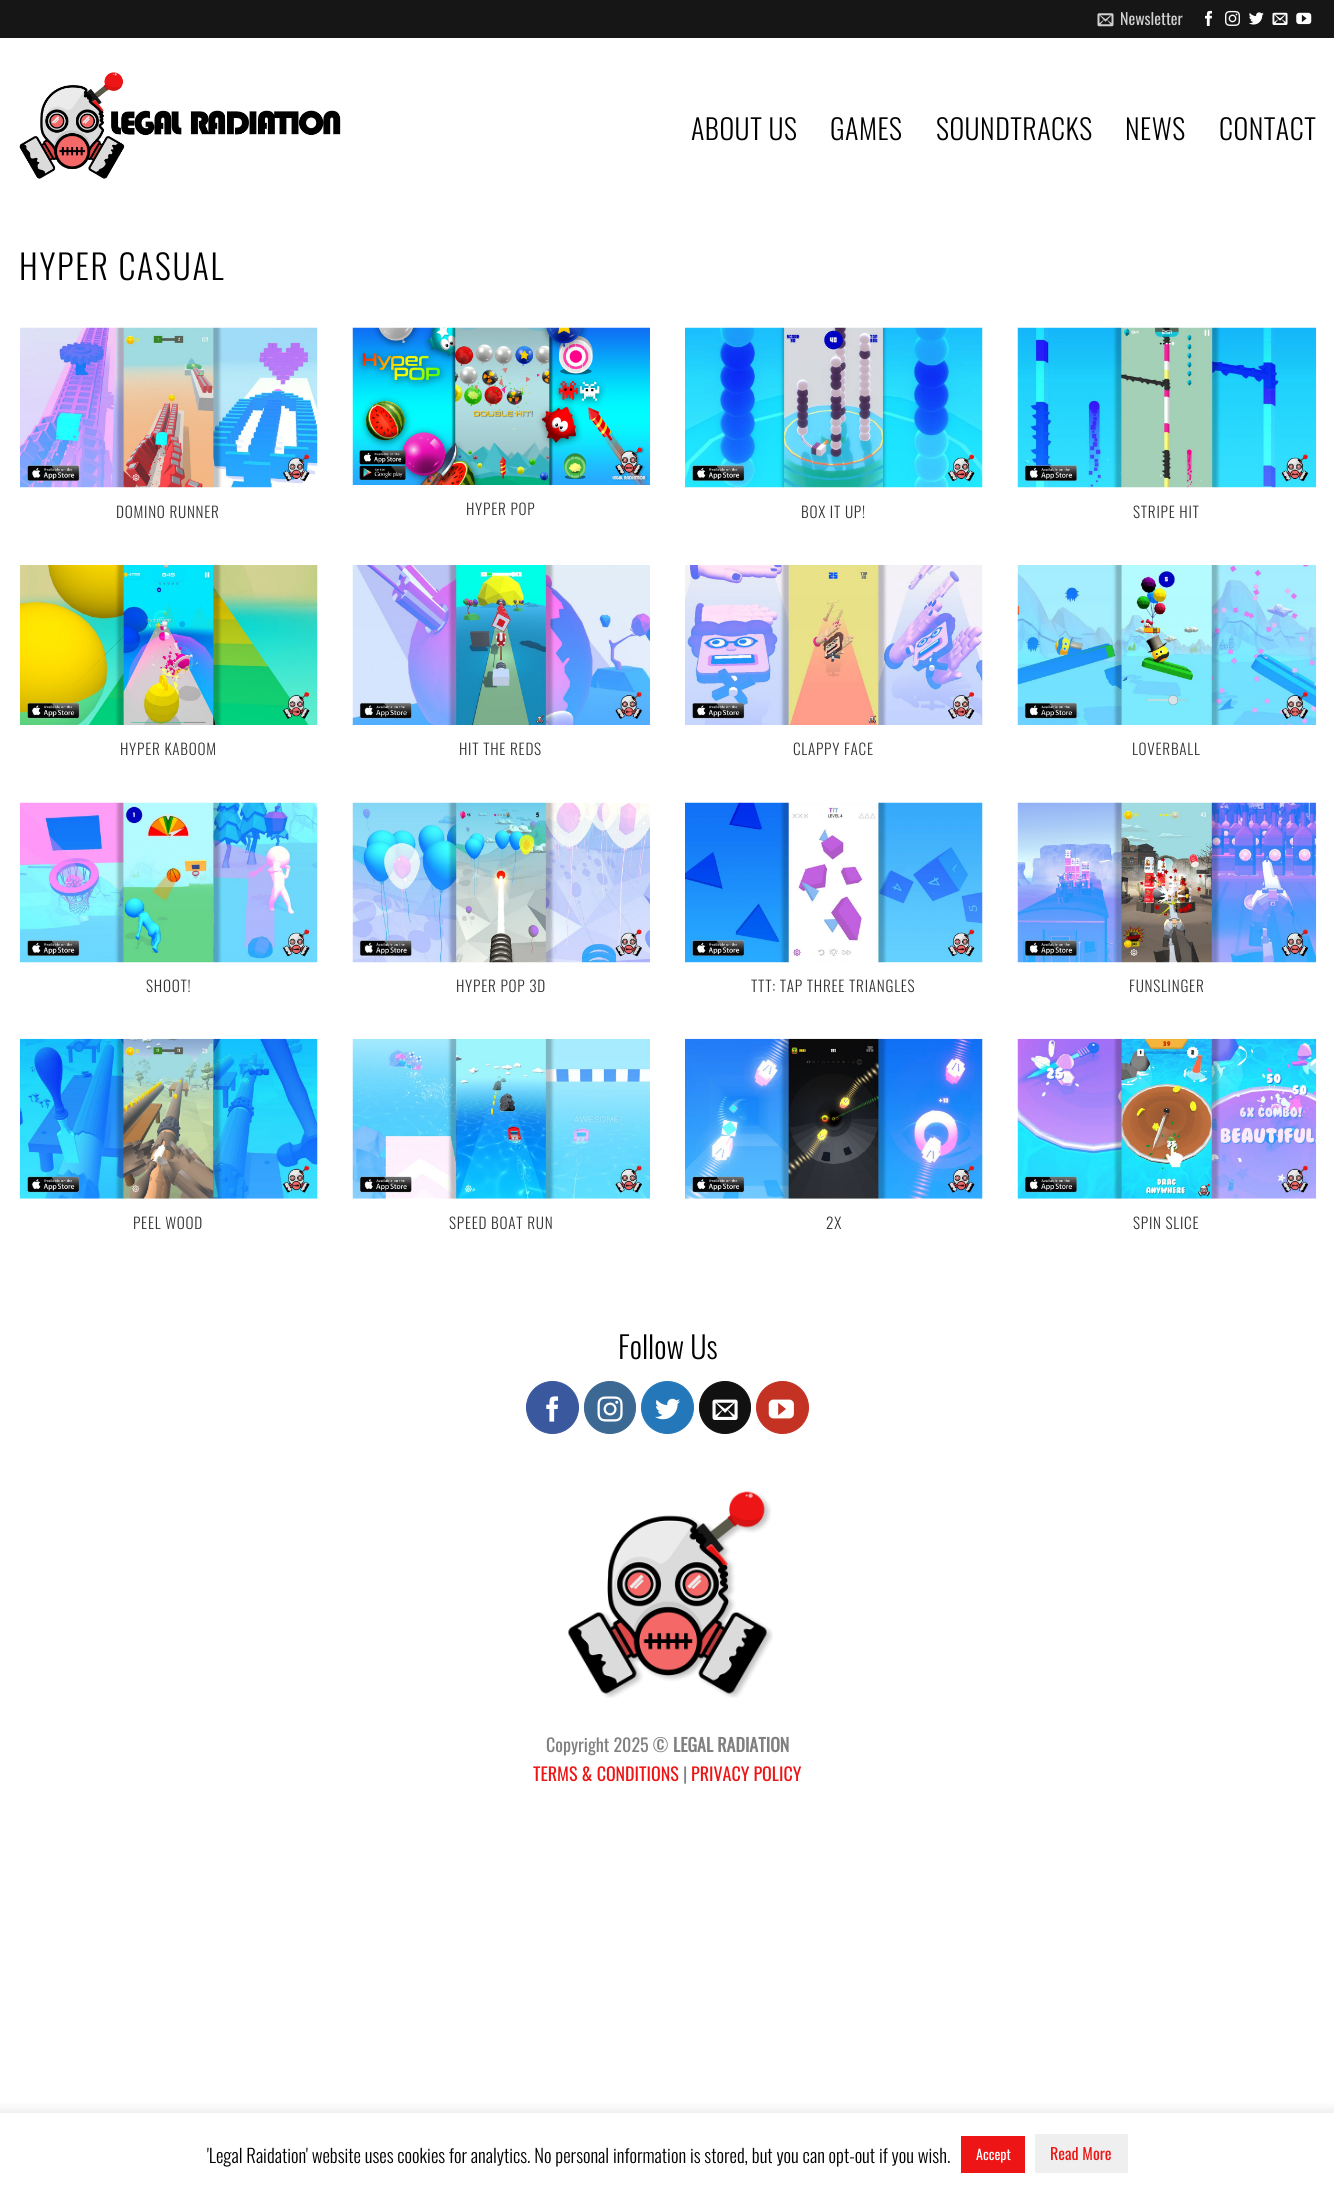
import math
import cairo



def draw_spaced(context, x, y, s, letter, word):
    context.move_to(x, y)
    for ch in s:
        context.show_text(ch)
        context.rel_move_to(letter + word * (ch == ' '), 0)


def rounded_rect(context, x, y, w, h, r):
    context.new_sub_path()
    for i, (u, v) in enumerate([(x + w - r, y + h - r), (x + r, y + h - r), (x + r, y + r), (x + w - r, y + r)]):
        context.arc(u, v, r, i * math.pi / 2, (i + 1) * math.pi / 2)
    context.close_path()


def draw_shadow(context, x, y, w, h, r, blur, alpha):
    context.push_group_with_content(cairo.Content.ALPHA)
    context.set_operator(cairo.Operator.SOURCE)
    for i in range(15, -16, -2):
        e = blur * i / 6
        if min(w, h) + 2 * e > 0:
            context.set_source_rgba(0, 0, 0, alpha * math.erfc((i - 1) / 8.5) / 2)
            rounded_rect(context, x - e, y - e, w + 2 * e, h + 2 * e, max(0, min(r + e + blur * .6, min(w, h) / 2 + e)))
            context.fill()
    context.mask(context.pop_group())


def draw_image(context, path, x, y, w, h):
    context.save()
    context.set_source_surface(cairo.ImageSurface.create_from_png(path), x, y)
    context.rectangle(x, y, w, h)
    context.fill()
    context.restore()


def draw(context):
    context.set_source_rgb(1, 1, 1)
    context.paint()
    context.set_source_rgb(22 / 255, 22 / 255, 22 / 255)
    context.rectangle(0, 0, 1334, 38)
    context.fill()
    draw_image(context, "images/1.png", 1097, 13, 17, 14)
    draw_image(context, "images/2.png", 1205, 10, 7, 16)
    draw_image(context, "images/3.png", 1225, 10, 15, 16)
    draw_image(context, "images/4.png", 1249, 12, 15, 13)
    draw_image(context, "images/5.png", 1272, 12, 16, 13)
    draw_image(context, "images/6.png", 1296, 12, 16, 13)
    draw_image(context, "images/7.png", 19, 72, 322, 107)
    draw_image(context, "images/8.png", 20, 327, 298, 161)
    draw_image(context, "images/9.png", 352, 327, 298, 158)
    draw_image(context, "images/10.png", 685, 327, 298, 161)
    draw_image(context, "images/11.png", 1017, 327, 300, 161)
    draw_image(context, "images/12.png", 20, 565, 298, 160)
    draw_image(context, "images/13.png", 352, 565, 298, 160)
    draw_image(context, "images/14.png", 685, 565, 298, 160)
    draw_image(context, "images/15.png", 1017, 565, 300, 160)
    draw_image(context, "images/16.png", 20, 802, 298, 161)
    draw_image(context, "images/17.png", 352, 802, 298, 161)
    draw_image(context, "images/18.png", 685, 802, 298, 161)
    draw_image(context, "images/19.png", 1017, 802, 300, 161)
    draw_image(context, "images/20.png", 20, 1038, 298, 161)
    draw_image(context, "images/21.png", 352, 1038, 298, 161)
    draw_image(context, "images/22.png", 685, 1038, 298, 161)
    draw_image(context, "images/23.png", 1017, 1038, 300, 161)
    context.set_source_rgb(58 / 255, 88 / 255, 157 / 255)
    context.arc(552.5, 1407.5, 26, 0, 2 * math.pi)
    context.fill_preserve()
    context.set_line_width(1)
    context.stroke()
    draw_image(context, "images/24.png", 546, 1396, 13, 26)
    context.set_source_rgb(59 / 255, 105 / 255, 148 / 255)
    rounded_rect(context, 584.5, 1381.5, 51, 52, 25.5)
    context.fill_preserve()
    context.stroke()
    draw_image(context, "images/25.png", 597, 1396, 26, 26)
    context.set_source_rgb(36 / 255, 120 / 255, 186 / 255)
    context.arc(667.5, 1407.5, 26, 0, 2 * math.pi)
    context.fill_preserve()
    context.stroke()
    draw_image(context, "images/26.png", 655, 1398, 25, 22)
    context.set_source_rgb(17 / 255, 17 / 255, 17 / 255)
    rounded_rect(context, 699.5, 1381.5, 51, 52, 25.5)
    context.fill_preserve()
    context.stroke()
    draw_image(context, "images/27.png", 712, 1399, 26, 21)
    context.set_source_rgb(195 / 255, 50 / 255, 35 / 255)
    context.arc(782.5, 1407.5, 26, 0, 2 * math.pi)
    context.fill_preserve()
    context.stroke()
    draw_image(context, "images/28.png", 768, 1399, 26, 20)
    draw_image(context, "images/29.png", 568, 1491, 205, 207)
    context.save()
    context.rectangle(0, 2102, 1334, 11)
    context.clip()
    context.set_source_rgb(172 / 255, 171 / 255, 171 / 255)
    draw_shadow(context, 0, 2111, 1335, 75, 0, 6, 0.3)
    context.restore()
    context.set_source_rgb(237 / 255, 21 / 255, 21 / 255)
    context.rectangle(961, 2136, 64, 37)
    context.fill()
    context.set_source_rgb(239 / 255, 239 / 255, 239 / 255)
    context.rectangle(1035, 2134, 93, 39)
    context.fill()
    context.select_font_face("Oswald")
    context.set_font_size(16)
    context.set_source_rgb(208 / 255, 208 / 255, 208 / 255)
    context.move_to(1120, 25)
    context.show_text("Newsletter")
    context.select_font_face("Oswald Light")
    context.set_font_size(28)
    context.set_source_rgb(0, 0, 0)
    draw_spaced(context, 691, 140, "ABOUT US", 0.5, 0)
    draw_spaced(context, 830, 140, "GAMES", 0.5, 0)
    draw_spaced(context, 936, 140, "SOUNDTRACKS", 0.5, 0)
    draw_spaced(context, 1125, 140, "NEWS", 0.5, 0)
    draw_spaced(context, 1219, 140, "CONTACT", 0.5, 0)
    context.set_font_size(34)
    draw_spaced(context, 19, 280, "HYPER CASUAL", 1.75, 0)
    context.set_font_size(15.25)
    context.set_source_rgb(51 / 255, 51 / 255, 51 / 255)
    draw_spaced(context, 116, 518, "DOMINO RUNNER", 0.75, 0)
    draw_spaced(context, 466, 515, "HYPER POP", 0.75, 0)
    draw_spaced(context, 801, 518, "BOX IT UP!", 0.75, 0)
    draw_spaced(context, 1133, 518, "STRIPE HIT", 0.75, 0)
    draw_spaced(context, 120, 755, "HYPER KABOOM", 0.75, 0)
    draw_spaced(context, 459, 755, "HIT THE REDS", 0.75, 0)
    draw_spaced(context, 793, 755, "CLAPPY FACE", 0.75, 0)
    draw_spaced(context, 1132, 755, "LOVERBALL", 0.75, 0)
    draw_spaced(context, 146, 992, "SHOOT!", 0.75, 0)
    draw_spaced(context, 456, 992, "HYPER POP 3D", 0.75, 0)
    draw_spaced(context, 751, 992, "TTT: TAP THREE TRIANGLES", 0.75, 0)
    draw_spaced(context, 1129, 992, "FUNSLINGER", 0.75, 0)
    draw_spaced(context, 133, 1229, "PEEL WOOD", 0.75, 0)
    draw_spaced(context, 449, 1229, "SPEED BOAT RUN", 0.75, 0)
    draw_spaced(context, 826, 1229, "2X", 0.75, 0)
    draw_spaced(context, 1133, 1229, "SPIN SLICE", 0.75, 0)
    context.set_font_size(30.5)
    context.set_source_rgb(0, 0, 0)
    context.move_to(618, 1359)
    context.show_text("Follow Us")
    context.select_font_face("Oswald")
    context.set_font_size(18)
    context.set_source_rgb(128 / 255, 128 / 255, 128 / 255)
    context.move_to(546, 1752)
    context.show_text("Copyright 2025 ©")
    context.select_font_face("Oswald", cairo.FontSlant.NORMAL, cairo.FontWeight.BOLD)
    context.move_to(673, 1752)
    context.show_text("LEGAL RADIATION")
    context.select_font_face("Oswald")
    context.set_source_rgb(237 / 255, 21 / 255, 21 / 255)
    context.move_to(533, 1781)
    context.show_text("TERMS & CONDITIONS")
    context.set_source_rgb(128 / 255, 128 / 255, 128 / 255)
    context.move_to(683, 1781)
    context.show_text("|")
    context.set_source_rgb(237 / 255, 21 / 255, 21 / 255)
    context.move_to(691, 1781)
    context.show_text("PRIVACY POLICY")
    context.select_font_face("Oswald Light")
    context.set_font_size(18.75)
    context.set_source_rgb(0, 0, 0)
    context.move_to(207, 2163)
    context.show_text("'Legal Raidation' website uses cookies for analytics. No personal information is stored, but you can opt-out if you wish.")
    context.select_font_face("Oswald")
    context.set_font_size(14)
    context.set_source_rgb(1, 1, 1)
    context.move_to(976, 2160)
    context.show_text("Accept")
    context.set_font_size(16)
    context.set_source_rgb(237 / 255, 21 / 255, 21 / 255)
    context.move_to(1050, 2160)
    context.show_text("Read More")


surface = cairo.ImageSurface(cairo.Format.RGB24, 1334, 2187)
context = cairo.Context(surface)
options = cairo.FontOptions()
options.set_hint_metrics(cairo.HintMetrics.OFF)
options.set_hint_style(cairo.HintStyle.NONE)
context.set_font_options(options)
context.set_miter_limit(4)
draw(context)
surface.write_to_png("out.png")
